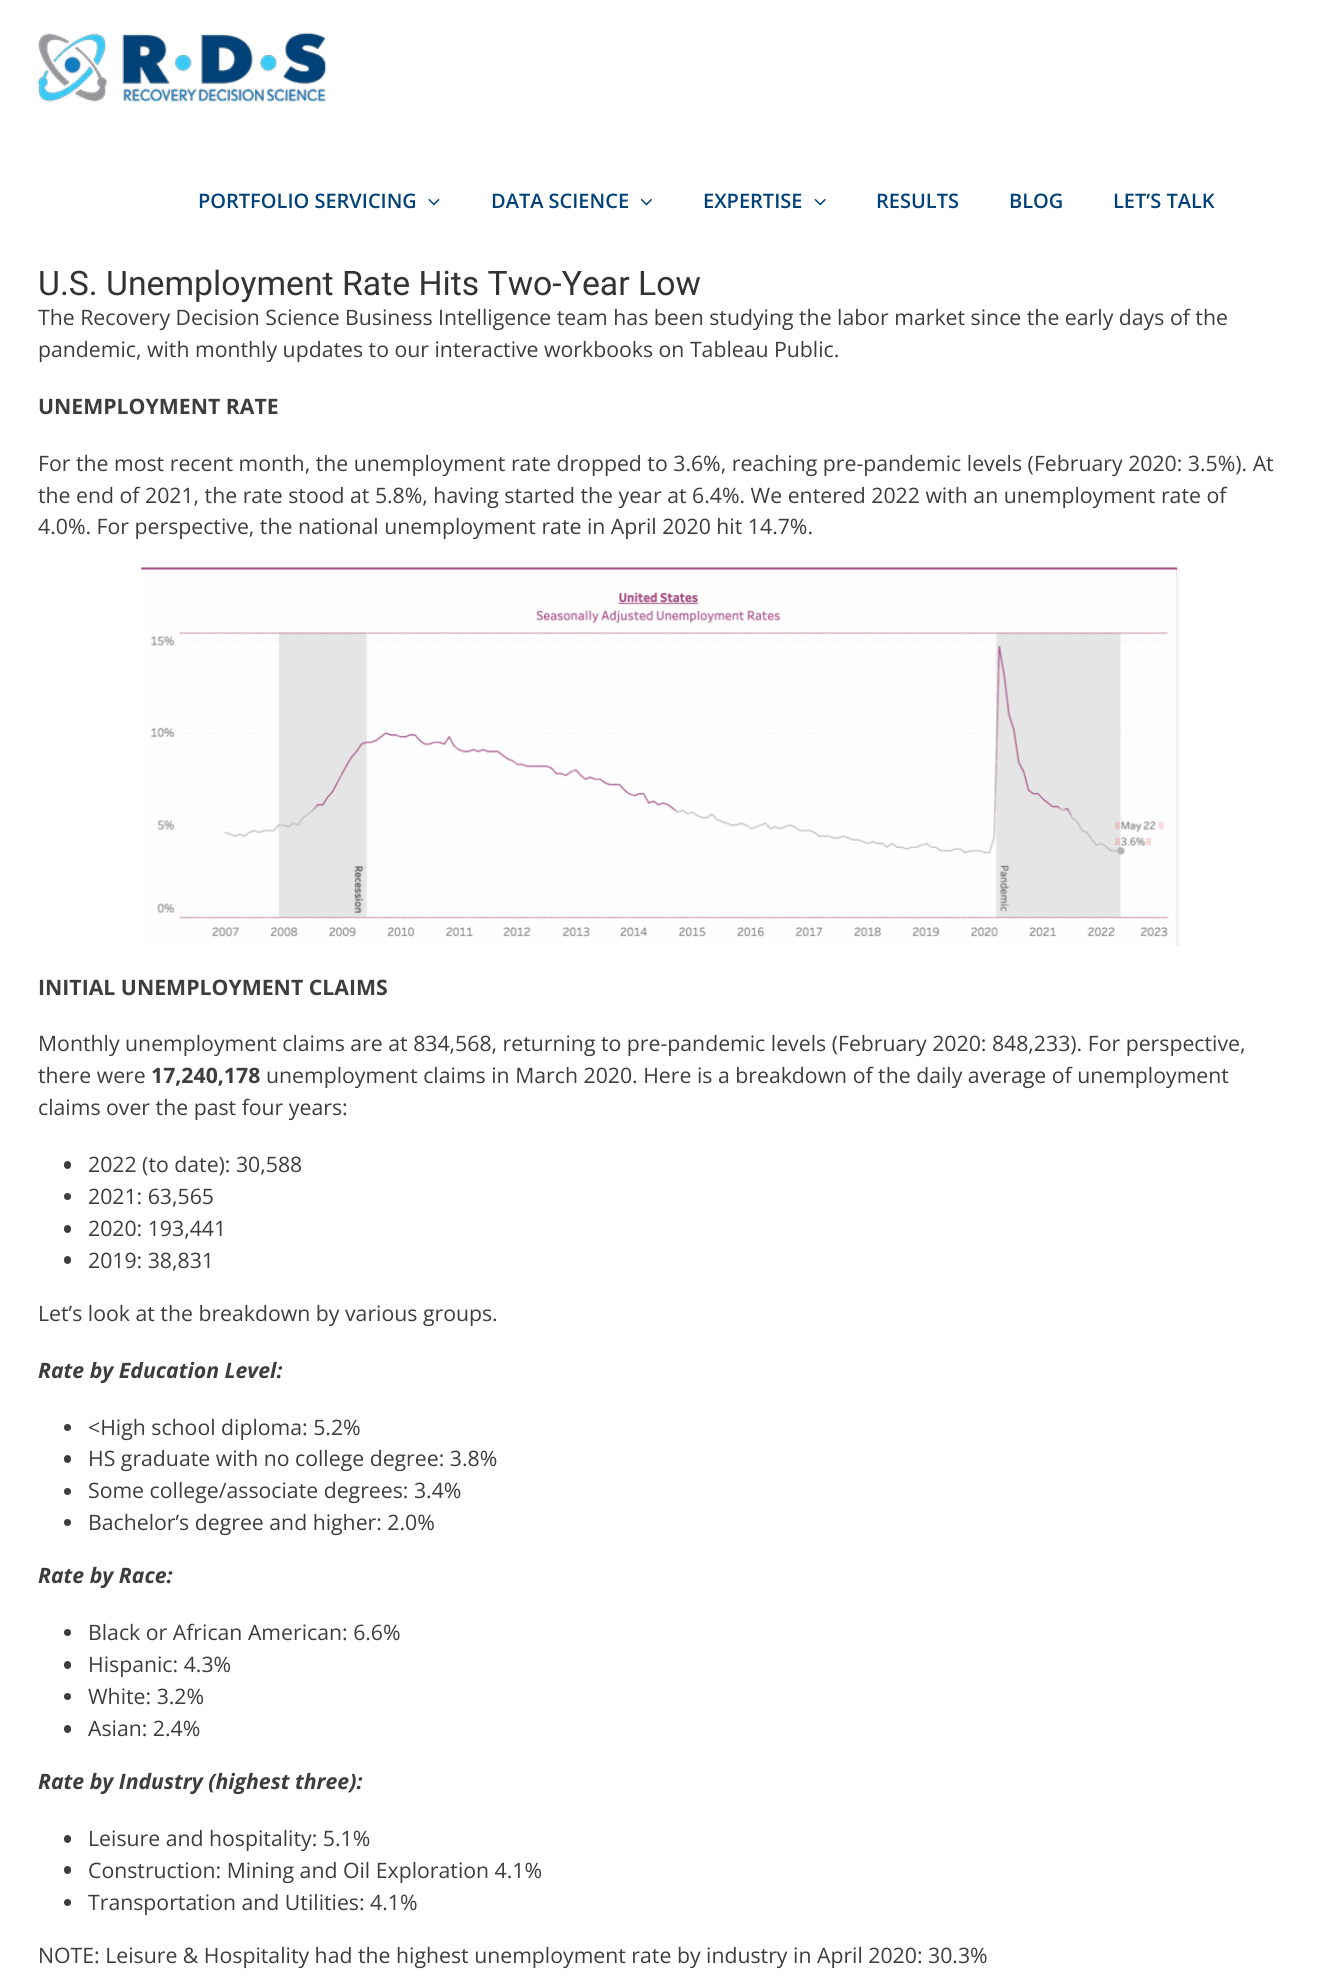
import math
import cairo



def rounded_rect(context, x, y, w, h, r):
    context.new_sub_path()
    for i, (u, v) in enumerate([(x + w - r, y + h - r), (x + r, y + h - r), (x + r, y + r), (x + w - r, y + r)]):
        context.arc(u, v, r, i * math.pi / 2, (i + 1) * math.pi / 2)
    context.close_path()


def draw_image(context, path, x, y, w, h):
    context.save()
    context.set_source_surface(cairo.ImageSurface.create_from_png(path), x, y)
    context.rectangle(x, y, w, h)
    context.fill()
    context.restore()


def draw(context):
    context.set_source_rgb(1, 1, 1)
    context.paint()
    draw_image(context, "images/1.png", 37, 32, 290, 70)
    draw_image(context, "images/2.png", 428, 198, 12, 8)
    draw_image(context, "images/3.png", 640, 198, 12, 8)
    draw_image(context, "images/4.png", 814, 198, 12, 8)
    draw_image(context, "images/5.png", 141, 567, 1039, 380)
    context.set_source_rgb(61 / 255, 61 / 255, 61 / 255)
    rounded_rect(context, 64, 1161, 7, 8, 3.5)
    context.fill()
    context.arc(67.5, 1196.5, 3.5, 0, 2 * math.pi)
    context.fill()
    rounded_rect(context, 64, 1225, 7, 8, 3.5)
    context.fill()
    rounded_rect(context, 64, 1256, 7, 8, 3.5)
    context.fill()
    context.arc(67.5, 1427.5, 3.5, 0, 2 * math.pi)
    context.fill()
    rounded_rect(context, 64, 1455, 7, 8, 3.5)
    context.fill()
    context.arc(67.5, 1491.5, 3.5, 0, 2 * math.pi)
    context.fill()
    context.arc(67.5, 1522.5, 3.5, 0, 2 * math.pi)
    context.fill()
    context.arc(67.5, 1632.5, 3.5, 0, 2 * math.pi)
    context.fill()
    rounded_rect(context, 64, 1661, 7, 8, 3.5)
    context.fill()
    context.arc(67.5, 1696.5, 3.5, 0, 2 * math.pi)
    context.fill()
    rounded_rect(context, 64, 1725, 7, 8, 3.5)
    context.fill()
    rounded_rect(context, 64, 1835, 7, 8, 3.5)
    context.fill()
    rounded_rect(context, 64, 1866, 7, 8, 3.5)
    context.fill()
    context.arc(67.5, 1902.5, 3.5, 0, 2 * math.pi)
    context.fill()
    context.select_font_face("Open Sans SemiBold")
    context.set_font_size(20)
    context.set_source_rgb(0, 65 / 255, 119 / 255)
    context.move_to(198, 208)
    context.show_text("PORTFOLIO SERVICING")
    context.move_to(491, 208)
    context.show_text("DATA SCIENCE")
    context.move_to(703, 208)
    context.show_text("EXPERTISE")
    context.move_to(876, 208)
    context.show_text("RESULTS")
    context.move_to(1009, 208)
    context.show_text("BLOG")
    context.move_to(1113, 208)
    context.show_text("LET’S TALK")
    context.select_font_face("Roboto")
    context.set_font_size(33.75)
    context.set_source_rgb(51 / 255, 51 / 255, 51 / 255)
    context.move_to(38, 295)
    context.show_text("U.S. Unemployment Rate Hits Two-Year Low")
    context.select_font_face("Open Sans")
    context.set_font_size(21.25)
    context.set_source_rgb(61 / 255, 61 / 255, 61 / 255)
    context.move_to(38, 325)
    context.show_text("The Recovery Decision Science Business Intelligence team has been studying the labor market since the early days of the")
    context.move_to(38, 357)
    context.show_text("pandemic, with monthly updates to our interactive workbooks on Tableau Public.")
    context.select_font_face("Open Sans", cairo.FontSlant.NORMAL, cairo.FontWeight.BOLD)
    context.move_to(38, 414)
    context.show_text("UNEMPLOYMENT RATE")
    context.select_font_face("Open Sans")
    context.move_to(38, 471)
    context.show_text("For the most recent month, the unemployment rate dropped to 3.6%, reaching pre-pandemic levels (February 2020: 3.5%). At")
    context.move_to(38, 503)
    context.show_text("the end of 2021, the rate stood at 5.8%, having started the year at 6.4%. We entered 2022 with an unemployment rate of")
    context.move_to(38, 534)
    context.show_text("4.0%. For perspective, the national unemployment rate in April 2020 hit 14.7%.")
    context.select_font_face("Open Sans", cairo.FontSlant.NORMAL, cairo.FontWeight.BOLD)
    context.move_to(38, 995)
    context.show_text("INITIAL UNEMPLOYMENT CLAIMS")
    context.select_font_face("Open Sans")
    context.move_to(38, 1051)
    context.show_text("Monthly unemployment claims are at 834,568, returning to pre-pandemic levels (February 2020: 848,233). For perspective,")
    context.move_to(38, 1083)
    context.show_text("there were")
    context.select_font_face("Open Sans", cairo.FontSlant.NORMAL, cairo.FontWeight.BOLD)
    context.move_to(151, 1083)
    context.show_text("17,240,178")
    context.select_font_face("Open Sans")
    context.move_to(266, 1083)
    context.show_text("unemployment claims in March 2020. Here is a breakdown of the daily average of unemployment")
    context.move_to(38, 1115)
    context.show_text("claims over the past four years:")
    context.move_to(88, 1172)
    context.show_text("2022 (to date): 30,588")
    context.move_to(88, 1204)
    context.show_text("2021: 63,565")
    context.move_to(88, 1236)
    context.show_text("2020: 193,441")
    context.move_to(88, 1268)
    context.show_text("2019: 38,831")
    context.move_to(38, 1321)
    context.show_text("Let’s look at the breakdown by various groups.")
    context.select_font_face("Open Sans", cairo.FontSlant.ITALIC, cairo.FontWeight.BOLD)
    context.move_to(38, 1378)
    context.show_text("Rate by Education Level:")
    context.select_font_face("Open Sans")
    context.move_to(88, 1435)
    context.show_text("<High school diploma: 5.2%")
    context.move_to(88, 1466)
    context.show_text("HS graduate with no college degree: 3.8%")
    context.move_to(88, 1498)
    context.show_text("Some college/associate degrees: 3.4%")
    context.move_to(88, 1530)
    context.show_text("Bachelor’s degree and higher: 2.0%")
    context.select_font_face("Open Sans", cairo.FontSlant.ITALIC, cairo.FontWeight.BOLD)
    context.move_to(38, 1583)
    context.show_text("Rate by Race:")
    context.select_font_face("Open Sans")
    context.move_to(88, 1640)
    context.show_text("Black or African American: 6.6%")
    context.move_to(88, 1672)
    context.show_text("Hispanic: 4.3%")
    context.move_to(88, 1704)
    context.show_text("White: 3.2%")
    context.move_to(88, 1736)
    context.show_text("Asian: 2.4%")
    context.select_font_face("Open Sans", cairo.FontSlant.ITALIC, cairo.FontWeight.BOLD)
    context.move_to(38, 1789)
    context.show_text("Rate by Industry (highest three):")
    context.select_font_face("Open Sans")
    context.move_to(88, 1846)
    context.show_text("Leisure and hospitality: 5.1%")
    context.move_to(88, 1878)
    context.show_text("Construction: Mining and Oil Exploration 4.1%")
    context.move_to(88, 1910)
    context.show_text("Transportation and Utilities: 4.1%")
    context.move_to(38, 1963)
    context.show_text("NOTE: Leisure & Hospitality had the highest unemployment rate by industry in April 2020: 30.3%")


surface = cairo.ImageSurface(cairo.Format.RGB24, 1321, 1976)
context = cairo.Context(surface)
options = cairo.FontOptions()
options.set_hint_metrics(cairo.HintMetrics.OFF)
options.set_hint_style(cairo.HintStyle.NONE)
context.set_font_options(options)
context.set_miter_limit(4)
draw(context)
surface.write_to_png("out.png")
